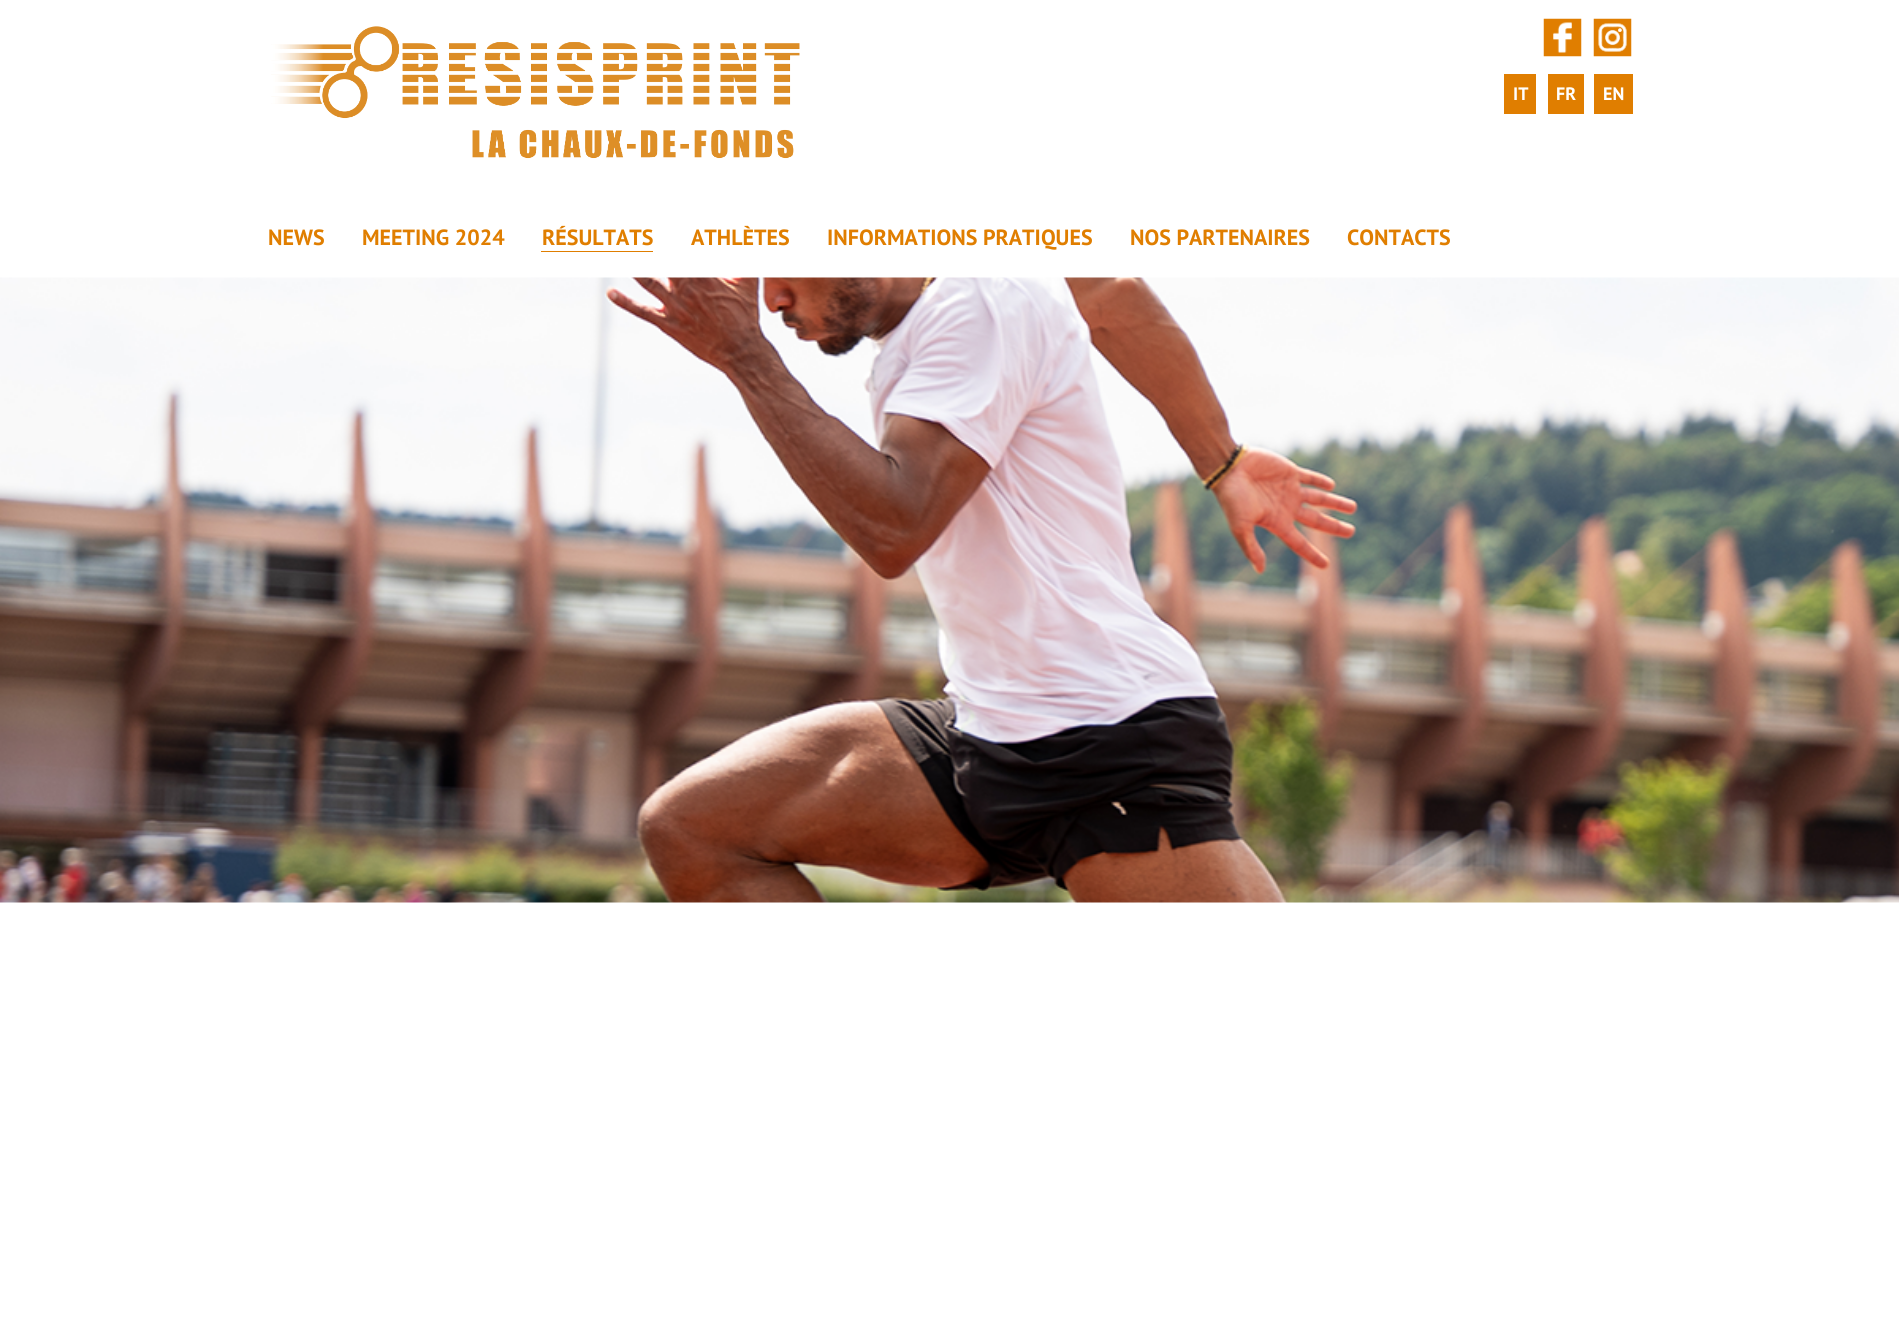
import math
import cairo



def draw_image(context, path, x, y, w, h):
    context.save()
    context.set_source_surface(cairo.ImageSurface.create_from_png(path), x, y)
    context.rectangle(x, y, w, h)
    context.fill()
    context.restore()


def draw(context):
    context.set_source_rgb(1, 1, 1)
    context.paint()
    draw_image(context, "images/1.png", 271, 26, 529, 133)
    draw_image(context, "images/2.png", 1543, 18, 39, 39)
    draw_image(context, "images/3.png", 1593, 18, 39, 39)
    context.set_source_rgb(224 / 255, 126 / 255, 0)
    context.rectangle(1504, 74, 32, 40)
    context.fill()
    context.rectangle(1548, 74, 36, 40)
    context.fill()
    context.rectangle(1594, 74, 39, 40)
    context.fill()
    context.rectangle(541, 251, 112, 1)
    context.fill()
    draw_image(context, "images/4.png", 0, 277, 1899, 626)
    context.select_font_face("PT Sans", cairo.FontSlant.NORMAL, cairo.FontWeight.BOLD)
    context.set_font_size(18)
    context.set_source_rgb(1, 1, 1)
    context.move_to(1513, 100)
    context.show_text("IT")
    context.move_to(1556, 100)
    context.show_text("FR")
    context.move_to(1603, 100)
    context.show_text("EN")
    context.set_font_size(22)
    context.set_source_rgb(224 / 255, 126 / 255, 0)
    context.move_to(268, 245)
    context.show_text("NEWS")
    context.move_to(362, 245)
    context.show_text("MEETING 2024")
    context.move_to(542, 245)
    context.show_text("RÉSULTATS")
    context.move_to(691, 245)
    context.show_text("ATHLÈTES")
    context.move_to(827, 245)
    context.show_text("INFORMATIONS PRATIQUES")
    context.move_to(1130, 245)
    context.show_text("NOS PARTENAIRES")
    context.move_to(1347, 245)
    context.show_text("CONTACTS")


surface = cairo.ImageSurface(cairo.Format.RGB24, 1899, 1325)
context = cairo.Context(surface)
options = cairo.FontOptions()
options.set_hint_metrics(cairo.HintMetrics.OFF)
options.set_hint_style(cairo.HintStyle.NONE)
context.set_font_options(options)
context.set_miter_limit(4)
draw(context)
surface.write_to_png("out.png")
